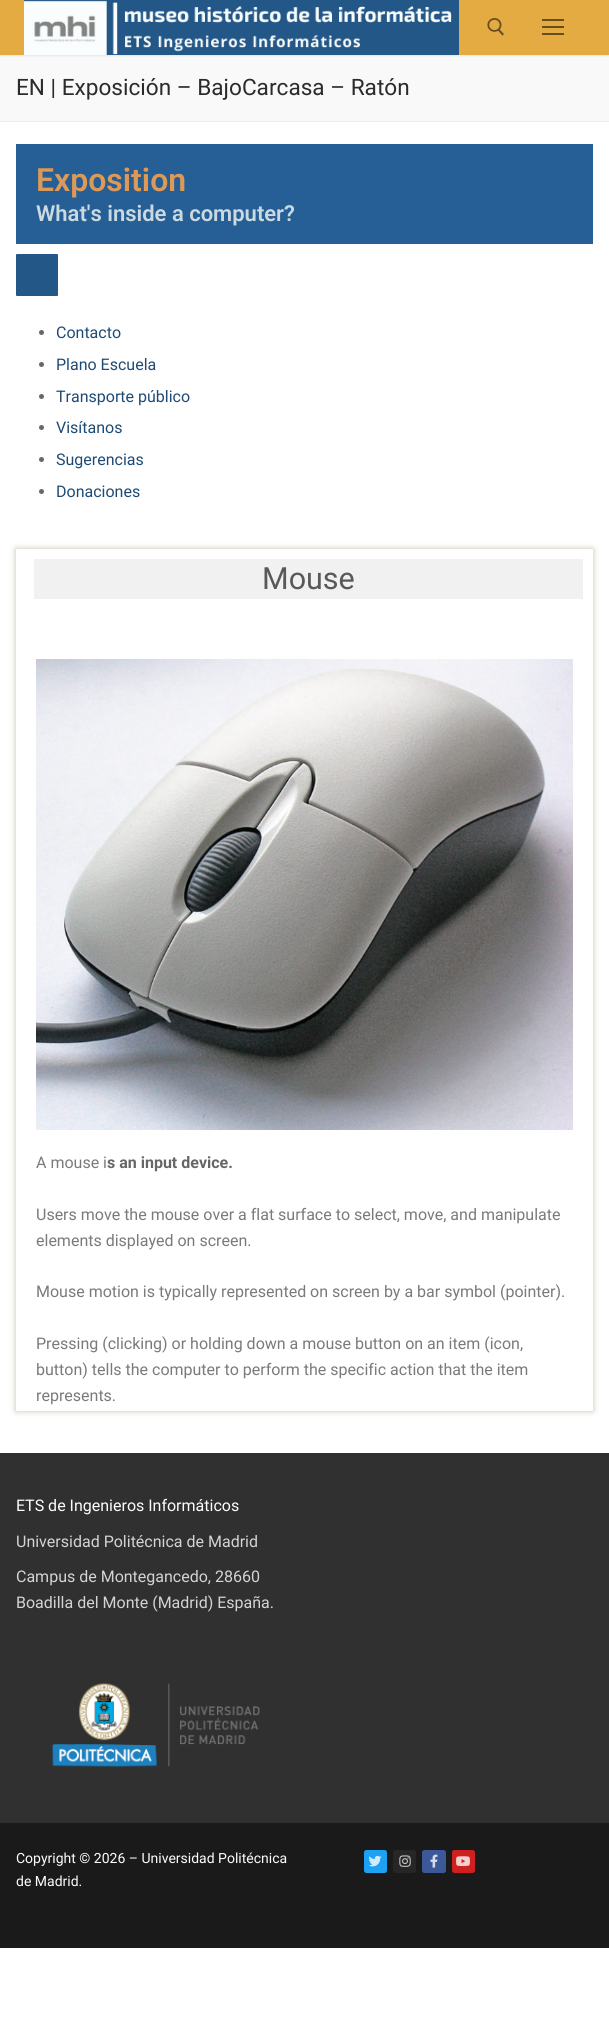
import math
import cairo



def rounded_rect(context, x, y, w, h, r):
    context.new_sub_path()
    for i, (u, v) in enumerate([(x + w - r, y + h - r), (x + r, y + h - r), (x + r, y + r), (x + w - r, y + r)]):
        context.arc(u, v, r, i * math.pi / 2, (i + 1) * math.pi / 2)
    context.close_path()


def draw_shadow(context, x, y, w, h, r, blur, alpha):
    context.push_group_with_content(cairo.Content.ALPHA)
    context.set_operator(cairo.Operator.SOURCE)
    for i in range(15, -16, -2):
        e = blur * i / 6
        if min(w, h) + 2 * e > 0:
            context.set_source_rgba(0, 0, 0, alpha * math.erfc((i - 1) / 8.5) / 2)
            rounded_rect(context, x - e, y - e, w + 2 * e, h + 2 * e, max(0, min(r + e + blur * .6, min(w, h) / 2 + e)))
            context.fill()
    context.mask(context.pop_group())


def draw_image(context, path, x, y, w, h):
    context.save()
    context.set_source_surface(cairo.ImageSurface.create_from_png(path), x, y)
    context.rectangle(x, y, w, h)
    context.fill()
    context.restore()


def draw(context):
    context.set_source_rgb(1, 1, 1)
    context.paint()
    context.set_source_rgb(249 / 255, 249 / 255, 249 / 255)
    context.rectangle(0, 55, 609, 66)
    context.fill()
    context.set_source_rgb(225 / 255, 229 / 255, 234 / 255)
    draw_shadow(context, 0, 1, 609, 55, 0, 1, 1)
    context.set_source_rgb(228 / 255, 171 / 255, 67 / 255)
    context.rectangle(0, 0, 609, 55)
    context.fill()
    draw_image(context, "images/1.png", 24, 0, 435, 55)
    draw_image(context, "images/2.png", 487, 18, 17, 18)
    context.set_source_rgb(103 / 255, 77 / 255, 30 / 255)
    context.rectangle(542, 26, 22, 2)
    context.fill()
    context.rectangle(542, 19, 22, 2)
    context.fill()
    context.rectangle(542, 33, 22, 2)
    context.fill()
    context.set_source_rgb(234 / 255, 236 / 255, 238 / 255)
    context.rectangle(0, 121, 609, 1)
    context.fill()
    context.set_source_rgb(37 / 255, 95 / 255, 149 / 255)
    context.rectangle(16, 144, 577, 100)
    context.fill()
    context.set_source_rgb(35 / 255, 87 / 255, 135 / 255)
    rounded_rect(context, 16, 254, 42, 42, 1)
    context.fill()
    context.set_source_rgb(104 / 255, 104 / 255, 104 / 255)
    context.arc(41.5, 332.5, 2.5, 0, 2 * math.pi)
    context.fill()
    context.arc(41.5, 364.5, 2.5, 0, 2 * math.pi)
    context.fill()
    context.arc(41.5, 396.5, 2.5, 0, 2 * math.pi)
    context.fill()
    context.arc(41.5, 427.5, 2.5, 0, 2 * math.pi)
    context.fill()
    context.arc(41.5, 459.5, 2.5, 0, 2 * math.pi)
    context.fill()
    context.arc(41.5, 491.5, 2.5, 0, 2 * math.pi)
    context.fill()
    context.save()
    context.set_fill_rule(cairo.FillRule.EVEN_ODD)
    context.new_path()
    context.move_to(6, 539)
    context.line_to(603, 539)
    context.line_to(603, 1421)
    context.line_to(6, 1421)
    context.close_path()
    context.move_to(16, 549)
    context.line_to(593, 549)
    context.line_to(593, 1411)
    context.line_to(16, 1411)
    context.close_path()
    context.clip()
    context.set_source_rgb(143 / 255, 118 / 255, 87 / 255)
    draw_shadow(context, 16, 549, 577, 862, 0, 3, 0.49)
    context.restore()
    context.set_source_rgb(241 / 255, 241 / 255, 241 / 255)
    context.rectangle(34, 559, 549, 40)
    context.fill()
    draw_image(context, "images/3.png", 36, 659, 537, 471)
    context.set_source_rgb(48 / 255, 48 / 255, 48 / 255)
    context.rectangle(0, 1453, 609, 370)
    context.fill()
    draw_image(context, "images/4.png", 52, 1683, 208, 84)
    context.set_source_rgb(26 / 255, 26 / 255, 26 / 255)
    context.rectangle(0, 1823, 609, 125)
    context.fill()
    context.set_source_rgb(29 / 255, 161 / 255, 242 / 255)
    rounded_rect(context, 364, 1850, 23, 23, 2.5)
    context.fill()
    draw_image(context, "images/5.png", 368, 1855, 14, 12)
    context.set_source_rgb(38 / 255, 38 / 255, 38 / 255)
    rounded_rect(context, 393, 1850, 23, 23, 2.5)
    context.fill()
    draw_image(context, "images/6.png", 399, 1855, 12, 12)
    context.set_source_rgb(59 / 255, 89 / 255, 152 / 255)
    rounded_rect(context, 422, 1850, 24, 23, 2.5)
    context.fill()
    draw_image(context, "images/7.png", 430, 1854, 8, 14)
    context.set_source_rgb(205 / 255, 32 / 255, 31 / 255)
    rounded_rect(context, 452, 1850, 23, 23, 2.5)
    context.fill()
    draw_image(context, "images/8.png", 456, 1856, 14, 10)
    context.select_font_face("Roboto")
    context.set_font_size(22.6)
    context.set_source_rgb(43 / 255, 43 / 255, 43 / 255)
    context.move_to(16, 95)
    context.show_text("EN | Exposición – BajoCarcasa – Ratón")
    context.select_font_face("Roboto SemiBold")
    context.set_font_size(32)
    context.set_source_rgb(220 / 255, 153 / 255, 87 / 255)
    context.move_to(36, 191)
    context.show_text("Exposition")
    context.set_font_size(22)
    context.set_source_rgb(203 / 255, 218 / 255, 224 / 255)
    context.move_to(36, 221)
    context.show_text("What's inside a computer?")
    context.select_font_face("Roboto")
    context.set_font_size(16)
    context.set_source_rgb(30 / 255, 75 / 255, 117 / 255)
    context.move_to(56, 338)
    context.show_text("Contacto")
    context.move_to(56, 370)
    context.show_text("Plano Escuela")
    context.move_to(56, 402)
    context.show_text("Transporte público")
    context.move_to(56, 433)
    context.show_text("Visítanos")
    context.move_to(56, 465)
    context.show_text("Sugerencias")
    context.move_to(56, 497)
    context.show_text("Donaciones")
    context.set_font_size(30.5)
    context.set_source_rgb(88 / 255, 89 / 255, 89 / 255)
    context.move_to(262, 589)
    context.show_text("Mouse")
    context.set_font_size(16)
    context.set_source_rgb(122 / 255, 122 / 255, 122 / 255)
    context.move_to(36, 1168)
    context.show_text("A mouse i")
    context.select_font_face("Roboto", cairo.FontSlant.NORMAL, cairo.FontWeight.BOLD)
    context.set_source_rgb(102 / 255, 102 / 255, 102 / 255)
    context.move_to(107, 1168)
    context.show_text("s an input device.")
    context.select_font_face("Roboto")
    context.set_source_rgb(122 / 255, 122 / 255, 122 / 255)
    context.move_to(36, 1220)
    context.show_text("Users move the mouse over a flat surface to select, move, and manipulate")
    context.move_to(36, 1246)
    context.show_text("elements displayed on screen.")
    context.move_to(36, 1297)
    context.show_text("Mouse motion is typically represented on screen by a bar symbol (pointer).")
    context.move_to(36, 1349)
    context.show_text("Pressing (clicking) or holding down a mouse button on an item (icon,")
    context.move_to(36, 1375)
    context.show_text("button) tells the computer to perform the specific action that the item")
    context.move_to(36, 1401)
    context.show_text("represents.")
    context.set_source_rgb(253 / 255, 253 / 255, 253 / 255)
    context.move_to(16, 1511)
    context.show_text("ETS de Ingenieros Informáticos")
    context.set_source_rgb(212 / 255, 212 / 255, 212 / 255)
    context.move_to(16, 1547)
    context.show_text("Universidad Politécnica de Madrid")
    context.move_to(16, 1582)
    context.show_text("Campus de Montegancedo, 28660")
    context.move_to(16, 1608)
    context.show_text("Boadilla del Monte (Madrid) España.")
    context.set_font_size(14)
    context.set_source_rgb(253 / 255, 253 / 255, 253 / 255)
    context.move_to(16, 1863)
    context.show_text("Copyright © 2026 – Universidad Politécnica")
    context.move_to(16, 1886)
    context.show_text("de Madrid.")


surface = cairo.ImageSurface(cairo.Format.RGB24, 609, 2039)
context = cairo.Context(surface)
options = cairo.FontOptions()
options.set_hint_metrics(cairo.HintMetrics.OFF)
options.set_hint_style(cairo.HintStyle.NONE)
context.set_font_options(options)
context.set_miter_limit(4)
draw(context)
surface.write_to_png("out.png")
